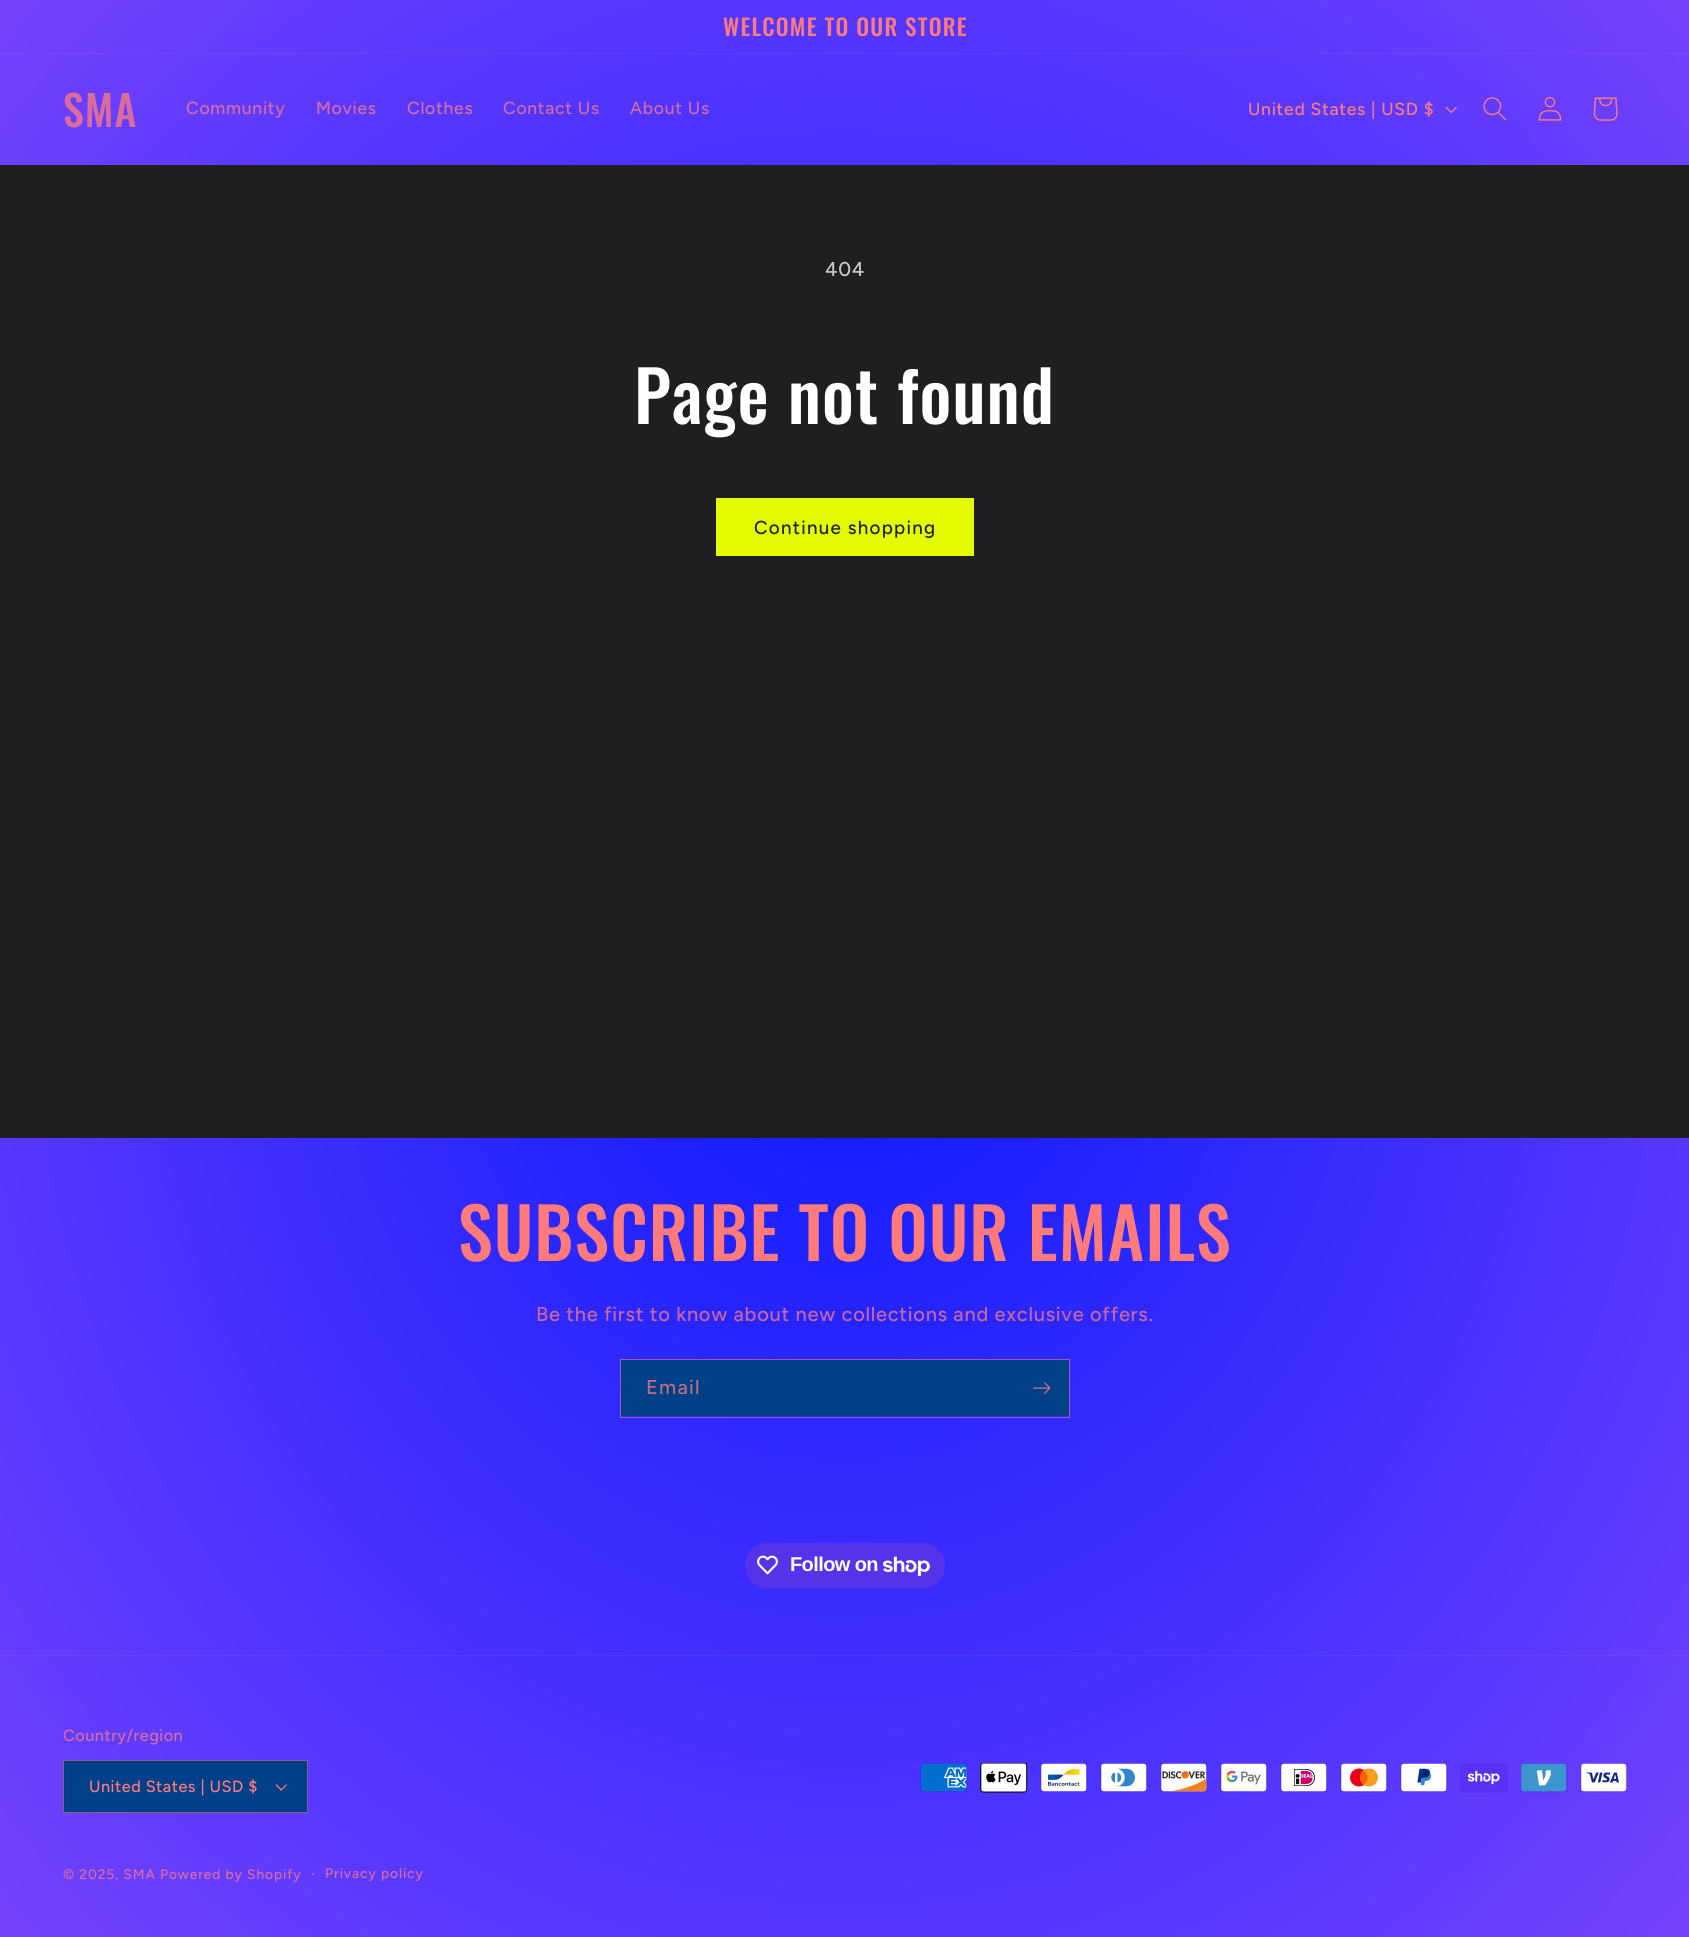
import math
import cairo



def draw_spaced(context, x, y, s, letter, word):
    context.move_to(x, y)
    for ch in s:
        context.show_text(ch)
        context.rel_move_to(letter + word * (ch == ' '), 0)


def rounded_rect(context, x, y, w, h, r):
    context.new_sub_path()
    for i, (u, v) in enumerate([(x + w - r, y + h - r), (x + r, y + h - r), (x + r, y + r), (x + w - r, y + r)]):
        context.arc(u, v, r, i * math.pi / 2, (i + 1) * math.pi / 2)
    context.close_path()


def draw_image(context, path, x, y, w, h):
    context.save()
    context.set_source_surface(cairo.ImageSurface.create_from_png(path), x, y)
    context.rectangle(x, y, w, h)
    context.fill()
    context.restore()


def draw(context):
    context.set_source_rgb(31 / 255, 31 / 255, 33 / 255)
    context.paint()
    gradient = cairo.RadialGradient(0, 0, 0, 0, 0, 1)
    gradient.set_matrix(cairo.Matrix(1 / 1195, 0, 0, 1 / 1370, -1 * 845 / 1195, -1 * 969 / 1370))
    gradient.add_color_stop_rgba(0.04, 14 / 255, 28 / 255, 1, 1)
    gradient.add_color_stop_rgba(1, 117 / 255, 66 / 255, 1, 1)
    context.set_source(gradient)
    context.rectangle(0, 0, 1689, 53)
    context.fill()
    gradient = cairo.RadialGradient(0, 0, 0, 0, 0, 1)
    gradient.set_matrix(cairo.Matrix(1 / 1195, 0, 0, 1 / 1370, -1 * 845 / 1195, -1 * 969 / 1370))
    gradient.add_color_stop_rgba(0.04, 33 / 255, 36 / 255, 244 / 255, 1)
    gradient.add_color_stop_rgba(1, 128 / 255, 71 / 255, 244 / 255, 1)
    context.set_source(gradient)
    context.rectangle(0, 53, 1689, 1)
    context.fill()
    gradient = cairo.RadialGradient(0, 0, 0, 0, 0, 1)
    gradient.set_matrix(cairo.Matrix(1 / 1195, 0, 0, 1 / 1370, -1 * 845 / 1195, -1 * 969 / 1370))
    gradient.add_color_stop_rgba(0.04, 14 / 255, 28 / 255, 1, 1)
    gradient.add_color_stop_rgba(1, 117 / 255, 66 / 255, 1, 1)
    context.set_source(gradient)
    context.rectangle(0, 54, 1689, 111)
    context.fill()
    draw_image(context, "images/1.png", 1445, 106, 12, 8)
    draw_image(context, "images/2.png", 1483, 97, 24, 24)
    draw_image(context, "images/3.png", 1538, 96, 24, 25)
    draw_image(context, "images/4.png", 1593, 97, 25, 24)
    context.set_source_rgb(227 / 255, 252 / 255, 2 / 255)
    context.rectangle(716, 498, 258, 58)
    context.fill()
    gradient = cairo.RadialGradient(0, 0, 0, 0, 0, 1)
    gradient.set_matrix(cairo.Matrix(1 / 1195, 0, 0, 1 / 1370, -1 * 845 / 1195, -1 * 969 / 1370))
    gradient.add_color_stop_rgba(0.04, 14 / 255, 28 / 255, 1, 1)
    gradient.add_color_stop_rgba(1, 117 / 255, 66 / 255, 1, 1)
    context.set_source(gradient)
    context.rectangle(0, 1138, 1689, 350)
    context.fill()
    context.set_source_rgb(0, 64 / 255, 137 / 255)
    context.rectangle(621, 1360, 448, 56)
    context.fill()
    context.rectangle(620.5, 1359.5, 449, 58)
    context.set_source_rgba(1, 123 / 255, 123 / 255, 0.55)
    context.set_line_width(1)
    context.stroke()
    draw_image(context, "images/5.png", 1033, 1382, 18, 13)
    gradient = cairo.RadialGradient(0, 0, 0, 0, 0, 1)
    gradient.set_matrix(cairo.Matrix(1 / 1195, 0, 0, 1 / 1370, -1 * 845 / 1195, -1 * 969 / 1370))
    gradient.add_color_stop_rgba(0.04, 14 / 255, 28 / 255, 1, 1)
    gradient.add_color_stop_rgba(1, 117 / 255, 66 / 255, 1, 1)
    context.set_source(gradient)
    context.rectangle(0, 1488, 1689, 449)
    context.fill()
    gradient = cairo.RadialGradient(0, 0, 0, 0, 0, 1)
    gradient.set_matrix(cairo.Matrix(1 / 1195, 0, 0, 1 / 1370, -1 * 845 / 1195, -1 * 969 / 1370))
    gradient.add_color_stop_rgba(0.04, 33 / 255, 36 / 255, 244 / 255, 1)
    gradient.add_color_stop_rgba(1, 128 / 255, 71 / 255, 244 / 255, 1)
    context.set_source(gradient)
    context.rectangle(0, 1655, 1689, 1)
    context.fill()
    context.set_source_rgb(84 / 255, 51 / 255, 235 / 255)
    rounded_rect(context, 745, 1543, 200, 45, 22.5)
    context.fill()
    draw_image(context, "images/6.png", 757, 1555, 21, 20)
    draw_image(context, "images/7.png", 883, 1556, 47, 20)
    context.set_source_rgb(0, 64 / 255, 137 / 255)
    context.rectangle(64, 1761, 243, 51)
    context.fill()
    draw_image(context, "images/8.png", 275, 1784, 12, 7)
    context.rectangle(63.5, 1760.5, 244, 52)
    context.set_source_rgb(140 / 255, 96 / 255, 129 / 255)
    context.stroke()
    draw_image(context, "images/9.png", 920, 1763, 48, 30)
    draw_image(context, "images/10.png", 980, 1763, 48, 30)
    draw_image(context, "images/11.png", 1040, 1763, 48, 30)
    draw_image(context, "images/12.png", 1100, 1763, 48, 30)
    draw_image(context, "images/13.png", 1160, 1763, 48, 30)
    draw_image(context, "images/14.png", 1220, 1763, 48, 30)
    draw_image(context, "images/15.png", 1280, 1763, 48, 30)
    draw_image(context, "images/16.png", 1340, 1763, 48, 30)
    draw_image(context, "images/17.png", 1400, 1763, 48, 30)
    draw_image(context, "images/18.png", 1460, 1763, 48, 30)
    draw_image(context, "images/19.png", 1520, 1763, 48, 30)
    draw_image(context, "images/20.png", 1580, 1763, 48, 30)
    context.select_font_face("Oswald Medium")
    context.set_font_size(22.75)
    context.set_source_rgb(1, 123 / 255, 123 / 255)
    draw_spaced(context, 723, 36, "WELCOME TO OUR STORE", 1.25, 0)
    context.set_font_size(42)
    context.set_source_rgb(218 / 255, 108 / 255, 156 / 255)
    draw_spaced(context, 63, 127, "SMA", 1.05, 0)
    context.select_font_face("Figtree Medium")
    context.set_font_size(17.5)
    draw_spaced(context, 186, 114, "Community", 0.75, 0)
    draw_spaced(context, 316, 114, "Movies", 0.75, 0)
    draw_spaced(context, 407, 114, "Clothes", 0.75, 0)
    context.set_source_rgb(212 / 255, 106 / 255, 156 / 255)
    draw_spaced(context, 503, 114, "Contact Us", 0.75, 0)
    draw_spaced(context, 630, 114, "About Us", 0.75, 0)
    context.set_source_rgb(1, 123 / 255, 123 / 255)
    draw_spaced(context, 1248, 115, "United States | USD $", 0.75, 0)
    context.set_font_size(20)
    context.set_source_rgb(199 / 255, 199 / 255, 200 / 255)
    draw_spaced(context, 825, 276, "404", 0.75, 0)
    context.select_font_face("Oswald Medium")
    context.set_font_size(70)
    context.set_source_rgb(1, 1, 1)
    draw_spaced(context, 634, 424, "Page not found", 1.05, 0)
    context.select_font_face("Figtree Medium")
    context.set_font_size(18.75)
    context.set_source_rgb(31 / 255, 31 / 255, 33 / 255)
    draw_spaced(context, 754, 534, "Continue shopping", 1.25, 0)
    context.select_font_face("Oswald Medium")
    context.set_font_size(70)
    context.set_source_rgb(1, 123 / 255, 123 / 255)
    draw_spaced(context, 458, 1261, "SUBSCRIBE TO OUR EMAILS", 1.05, 0)
    context.select_font_face("Figtree Medium")
    context.set_font_size(20)
    context.set_source_rgb(202 / 255, 102 / 255, 156 / 255)
    draw_spaced(context, 536, 1321, "Be the first to know about new collections and exclusive offers.", 0.75, 0)
    context.set_source_rgb(191 / 255, 108 / 255, 127 / 255)
    draw_spaced(context, 646, 1394, "Email", 1.25, 0)
    context.select_font_face("Liberation Sans", cairo.FontSlant.NORMAL, cairo.FontWeight.BOLD)
    context.set_source_rgb(1, 1, 1)
    draw_spaced(context, 790, 1571, "Follow on", -0.6, 0)
    context.select_font_face("Figtree Medium")
    context.set_font_size(16.25)
    context.set_source_rgb(218 / 255, 108 / 255, 156 / 255)
    draw_spaced(context, 63, 1741, "Country/region", 0.5, 0)
    context.set_source_rgb(1, 123 / 255, 123 / 255)
    draw_spaced(context, 89, 1792, "United States | USD $", 0.5, 0)
    context.set_font_size(13.75)
    context.set_source_rgb(218 / 255, 108 / 255, 156 / 255)
    draw_spaced(context, 63, 1879, "© 2025, SMA", 0.9, 0)
    draw_spaced(context, 160, 1879, "Powered by Shopify", 0.9, 0)
    context.set_font_size(15)
    draw_spaced(context, 311, 1879, "·", 0.9, 0)
    context.set_font_size(13.75)
    draw_spaced(context, 325, 1878, "Privacy policy", 0.9, 0)


surface = cairo.ImageSurface(cairo.Format.RGB24, 1689, 1937)
context = cairo.Context(surface)
options = cairo.FontOptions()
options.set_hint_metrics(cairo.HintMetrics.OFF)
options.set_hint_style(cairo.HintStyle.NONE)
context.set_font_options(options)
context.set_miter_limit(4)
draw(context)
surface.write_to_png("out.png")
